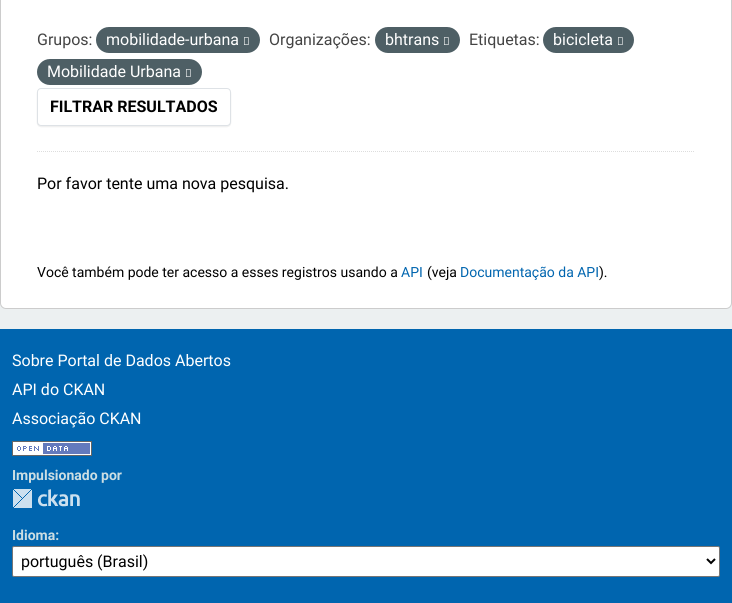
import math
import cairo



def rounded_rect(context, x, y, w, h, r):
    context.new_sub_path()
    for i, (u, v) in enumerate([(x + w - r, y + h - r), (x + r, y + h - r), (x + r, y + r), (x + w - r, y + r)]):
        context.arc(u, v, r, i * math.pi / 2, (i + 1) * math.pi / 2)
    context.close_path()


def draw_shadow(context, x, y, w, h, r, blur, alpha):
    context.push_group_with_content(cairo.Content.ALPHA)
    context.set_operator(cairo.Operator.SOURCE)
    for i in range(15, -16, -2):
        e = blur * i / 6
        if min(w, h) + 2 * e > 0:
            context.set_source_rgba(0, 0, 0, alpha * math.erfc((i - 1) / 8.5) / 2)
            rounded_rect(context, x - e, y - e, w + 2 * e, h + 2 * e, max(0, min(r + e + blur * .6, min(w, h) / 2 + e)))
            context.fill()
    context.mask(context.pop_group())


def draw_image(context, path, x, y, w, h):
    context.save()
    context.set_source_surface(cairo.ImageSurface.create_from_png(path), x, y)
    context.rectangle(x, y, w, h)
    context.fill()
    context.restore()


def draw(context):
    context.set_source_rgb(236 / 255, 240 / 255, 241 / 255)
    context.paint()
    context.set_source_rgb(1, 1, 1)
    rounded_rect(context, 0.5, -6.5, 731, 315, 5.5)
    context.fill_preserve()
    context.set_source_rgb(204 / 255, 204 / 255, 204 / 255)
    context.set_line_width(1)
    context.stroke()
    context.new_path()
    context.move_to(37, 151.5)
    context.line_to(695, 151.5)
    context.set_source_rgb(221 / 255, 221 / 255, 221 / 255)
    context.set_dash([1, 1])
    context.stroke()
    context.set_source_rgb(78 / 255, 95 / 255, 101 / 255)
    rounded_rect(context, 96, 27, 164, 26, 13)
    context.fill()
    draw_image(context, "images/1.png", 244, 37, 5, 8)
    rounded_rect(context, 375, 27, 85, 26, 13)
    context.fill()
    draw_image(context, "images/1.png", 444, 37, 5, 8)
    rounded_rect(context, 543, 27, 91, 26, 13)
    context.fill()
    draw_image(context, "images/1.png", 618, 37, 5, 8)
    rounded_rect(context, 37, 59, 165, 26, 13)
    context.fill()
    draw_image(context, "images/1.png", 186, 69, 5, 8)
    context.set_source_rgb(0, 0, 0)
    draw_shadow(context, 37, 89, 194, 38, 4, 0.5, 0.07)
    context.set_source_rgb(1, 1, 1)
    rounded_rect(context, 37.5, 88.5, 193, 37, 3.5)
    context.fill_preserve()
    context.set_source_rgb(222 / 255, 226 / 255, 230 / 255)
    context.set_dash([])
    context.stroke()
    context.set_source_rgb(0, 101 / 255, 175 / 255)
    context.rectangle(0, 329, 732, 274)
    context.fill()
    draw_image(context, "images/2.png", 12, 441, 80, 15)
    draw_image(context, "images/3.png", 13, 489, 67, 19)
    context.set_source_rgb(1, 1, 1)
    rounded_rect(context, 12.5, 546.5, 707, 30, 1.5)
    context.fill_preserve()
    context.set_source_rgb(118 / 255, 118 / 255, 118 / 255)
    context.stroke()
    context.new_path()
    context.move_to(707, 559)
    context.line_to(711, 563)
    context.line_to(715, 559)
    context.set_source_rgb(0, 0, 0)
    context.set_line_width(2)
    context.stroke()
    context.select_font_face("Roboto")
    context.set_font_size(16)
    context.set_source_rgb(68 / 255, 68 / 255, 68 / 255)
    context.move_to(37, 45)
    context.show_text("Grupos:")
    context.set_source_rgb(1, 1, 1)
    context.move_to(106, 45)
    context.show_text("mobilidade-urbana")
    context.set_source_rgb(68 / 255, 68 / 255, 68 / 255)
    context.move_to(269, 45)
    context.show_text("Organizações:")
    context.set_source_rgb(1, 1, 1)
    context.move_to(385, 45)
    context.show_text("bhtrans")
    context.set_source_rgb(68 / 255, 68 / 255, 68 / 255)
    context.move_to(469, 45)
    context.show_text("Etiquetas:")
    context.set_source_rgb(1, 1, 1)
    context.move_to(553, 45)
    context.show_text("bicicleta")
    context.move_to(47, 77)
    context.show_text("Mobilidade Urbana")
    context.select_font_face("Roboto", cairo.FontSlant.NORMAL, cairo.FontWeight.BOLD)
    context.set_source_rgb(0, 0, 0)
    context.move_to(50, 112)
    context.show_text("FILTRAR RESULTADOS")
    context.select_font_face("Roboto")
    context.move_to(37, 189)
    context.show_text("Por favor tente uma nova pesquisa.")
    context.set_font_size(14)
    context.move_to(37, 277)
    context.show_text("Você também pode ter acesso a esses registros usando a")
    context.set_source_rgb(0, 101 / 255, 175 / 255)
    context.move_to(401, 277)
    context.show_text("API")
    context.set_source_rgb(0, 0, 0)
    context.move_to(427, 277)
    context.show_text("(veja")
    context.set_source_rgb(0, 101 / 255, 175 / 255)
    context.move_to(460, 277)
    context.show_text("Documentação da API")
    context.set_source_rgb(0, 0, 0)
    context.move_to(599, 277)
    context.show_text(").")
    context.set_font_size(16)
    context.set_source_rgb(1, 1, 1)
    context.move_to(12, 366)
    context.show_text("Sobre Portal de Dados Abertos")
    context.move_to(12, 395)
    context.show_text("API do CKAN")
    context.move_to(12, 424)
    context.show_text("Associação CKAN")
    context.select_font_face("Roboto", cairo.FontSlant.NORMAL, cairo.FontWeight.BOLD)
    context.set_font_size(14)
    context.set_source_rgb(204 / 255, 222 / 255, 227 / 255)
    context.move_to(12, 480)
    context.show_text("Impulsionado por")
    context.move_to(12, 540)
    context.show_text("Idioma:")
    context.select_font_face("Roboto")
    context.set_font_size(16)
    context.set_source_rgb(0, 0, 0)
    context.move_to(21, 567)
    context.show_text("português (Brasil)")


surface = cairo.ImageSurface(cairo.Format.RGB24, 732, 603)
context = cairo.Context(surface)
options = cairo.FontOptions()
options.set_hint_metrics(cairo.HintMetrics.OFF)
options.set_hint_style(cairo.HintStyle.NONE)
context.set_font_options(options)
context.set_miter_limit(4)
draw(context)
surface.write_to_png("out.png")
